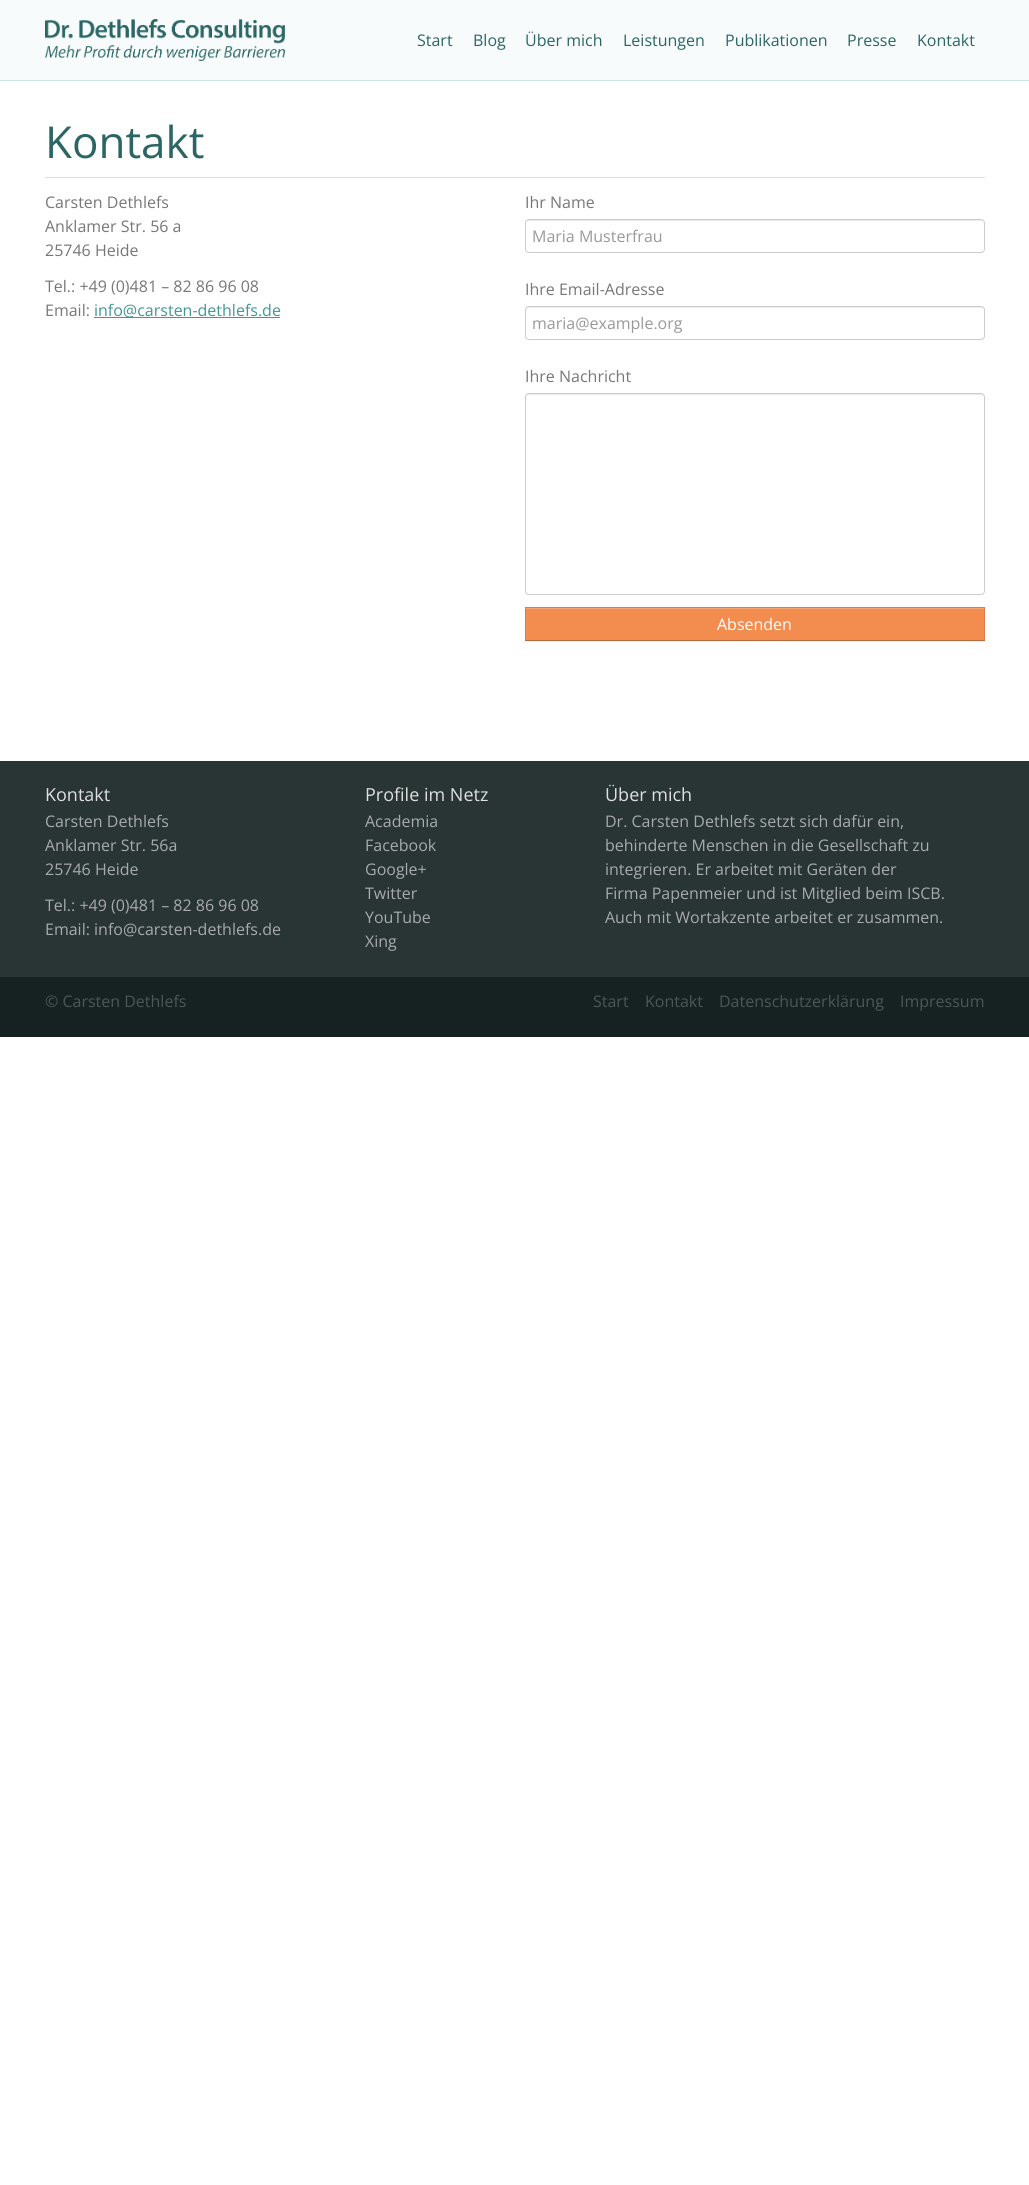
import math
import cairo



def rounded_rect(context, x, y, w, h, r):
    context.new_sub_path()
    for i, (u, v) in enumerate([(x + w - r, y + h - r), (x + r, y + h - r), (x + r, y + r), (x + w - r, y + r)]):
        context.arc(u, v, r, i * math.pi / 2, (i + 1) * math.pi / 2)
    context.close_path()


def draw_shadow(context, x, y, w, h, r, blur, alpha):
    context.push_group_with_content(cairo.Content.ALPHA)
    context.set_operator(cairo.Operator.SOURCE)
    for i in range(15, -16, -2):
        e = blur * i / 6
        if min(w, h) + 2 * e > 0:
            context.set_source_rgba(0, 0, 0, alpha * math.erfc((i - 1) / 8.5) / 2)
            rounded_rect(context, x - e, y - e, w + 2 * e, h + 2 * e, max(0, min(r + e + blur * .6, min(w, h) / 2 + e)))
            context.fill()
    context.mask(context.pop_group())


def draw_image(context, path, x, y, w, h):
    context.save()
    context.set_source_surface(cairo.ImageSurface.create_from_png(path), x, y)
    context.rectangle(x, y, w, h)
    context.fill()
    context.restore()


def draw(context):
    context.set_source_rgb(1, 1, 1)
    context.paint()
    context.set_source_rgb(247 / 255, 251 / 255, 251 / 255)
    context.rectangle(0, 0, 1029, 80)
    context.fill()
    context.set_source_rgb(205 / 255, 230 / 255, 229 / 255)
    context.rectangle(0, 80, 1029, 1)
    context.fill()
    draw_image(context, "images/1.png", 45, 19, 240, 42)
    context.set_source_rgb(221 / 255, 221 / 255, 221 / 255)
    context.rectangle(45, 177, 940, 1)
    context.fill()
    context.set_source_rgb(64 / 255, 151 / 255, 149 / 255)
    context.rectangle(94, 317, 186, 1)
    context.fill()
    context.set_source_rgb(236 / 255, 236 / 255, 236 / 255)
    context.new_path()
    context.move_to(529, 221)
    context.line_to(981, 221)
    context.curve_to(983, 221, 984, 222, 984, 224)
    context.line_to(984, 222)
    context.line_to(982, 220)
    context.line_to(528, 220)
    context.curve_to(526, 220, 526, 222, 526, 224)
    context.curve_to(526, 222, 527, 221, 529, 221)
    context.close_path()
    context.fill()
    rounded_rect(context, 525.5, 219.5, 459, 33, 3.5)
    context.set_source_rgb(204 / 255, 204 / 255, 204 / 255)
    context.set_line_width(1)
    context.stroke()
    context.set_source_rgb(236 / 255, 236 / 255, 236 / 255)
    context.new_path()
    context.move_to(529, 308)
    context.line_to(981, 308)
    context.curve_to(983, 308, 984, 309, 984, 311)
    context.line_to(984, 309)
    context.line_to(982, 307)
    context.line_to(528, 307)
    context.curve_to(526, 307, 526, 309, 526, 311)
    context.curve_to(526, 309, 527, 308, 529, 308)
    context.close_path()
    context.fill()
    rounded_rect(context, 525.5, 306.5, 459, 33, 3.5)
    context.set_source_rgb(204 / 255, 204 / 255, 204 / 255)
    context.stroke()
    context.set_source_rgb(236 / 255, 236 / 255, 236 / 255)
    context.new_path()
    context.move_to(529, 395)
    context.line_to(981, 395)
    context.curve_to(983, 395, 984, 396, 984, 398)
    context.curve_to(984, 396, 984, 394, 982, 394)
    context.line_to(528, 394)
    context.line_to(526, 396)
    context.line_to(526, 398)
    context.curve_to(526, 396, 527, 395, 529, 395)
    context.close_path()
    context.fill()
    rounded_rect(context, 525.5, 393.5, 459, 201, 3.5)
    context.set_source_rgb(204 / 255, 204 / 255, 204 / 255)
    context.stroke()
    context.set_source_rgb(0, 0, 0)
    draw_shadow(context, 525, 608, 460, 34, 0, 1, 0.05)
    context.set_source_rgb(242 / 255, 141 / 255, 79 / 255)
    context.rectangle(525, 607, 460, 34)
    context.fill()
    context.set_source_rgb(245 / 255, 164 / 255, 114 / 255)
    context.rectangle(526, 608, 458, 1)
    context.fill()
    context.set_source_rgb(218 / 255, 127 / 255, 71 / 255)
    context.new_path()
    context.move_to(525, 607)
    context.line_to(985, 607)
    context.line_to(984, 608)
    context.line_to(526, 608)
    context.close_path()
    context.fill()
    context.set_source_rgba(0, 0, 0, 0.1)
    context.new_path()
    context.move_to(985, 607)
    context.line_to(985, 641)
    context.line_to(984, 640)
    context.line_to(984, 608)
    context.close_path()
    context.fill()
    context.set_source_rgba(0, 0, 0, 0.25)
    context.new_path()
    context.move_to(985, 641)
    context.line_to(525, 641)
    context.line_to(526, 640)
    context.line_to(984, 640)
    context.close_path()
    context.fill()
    context.set_source_rgba(0, 0, 0, 0.1)
    context.new_path()
    context.move_to(525, 641)
    context.line_to(525, 607)
    context.line_to(526, 608)
    context.line_to(526, 640)
    context.close_path()
    context.fill()
    context.set_source_rgb(41 / 255, 52 / 255, 52 / 255)
    context.rectangle(0, 761, 1029, 216)
    context.fill()
    context.set_source_rgb(22 / 255, 33 / 255, 33 / 255)
    context.rectangle(0, 977, 1029, 60)
    context.fill()
    context.select_font_face("Open Sans")
    context.set_font_size(16)
    context.set_source_rgb(43 / 255, 102 / 255, 101 / 255)
    context.move_to(417, 46)
    context.show_text("Start")
    context.move_to(473, 46)
    context.show_text("Blog")
    context.move_to(525, 46)
    context.show_text("Über mich")
    context.move_to(623, 46)
    context.show_text("Leistungen")
    context.move_to(725, 46)
    context.show_text("Publikationen")
    context.move_to(847, 46)
    context.show_text("Presse")
    context.move_to(917, 46)
    context.show_text("Kontakt")
    context.set_font_size(44)
    context.move_to(45, 158)
    context.show_text("Kontakt")
    context.set_font_size(16)
    context.set_source_rgb(119 / 255, 119 / 255, 119 / 255)
    context.move_to(45, 208)
    context.show_text("Carsten Dethlefs")
    context.move_to(45, 232)
    context.show_text("Anklamer Str. 56 a")
    context.move_to(45, 256)
    context.show_text("25746 Heide")
    context.move_to(45, 292)
    context.show_text("Tel.: +49 (0)481 – 82 86 96 08")
    context.move_to(45, 316)
    context.show_text("Email:")
    context.set_source_rgb(64 / 255, 151 / 255, 149 / 255)
    context.move_to(94, 316)
    context.show_text("info@carsten-dethlefs.de")
    context.set_source_rgb(119 / 255, 119 / 255, 119 / 255)
    context.move_to(525, 208)
    context.show_text("Ihr Name")
    context.set_source_rgb(153 / 255, 153 / 255, 153 / 255)
    context.move_to(532, 242)
    context.show_text("Maria Musterfrau")
    context.set_source_rgb(119 / 255, 119 / 255, 119 / 255)
    context.move_to(525, 295)
    context.show_text("Ihre Email-Adresse")
    context.set_source_rgb(153 / 255, 153 / 255, 153 / 255)
    context.move_to(532, 329)
    context.show_text("maria@example.org")
    context.set_source_rgb(119 / 255, 119 / 255, 119 / 255)
    context.move_to(525, 382)
    context.show_text("Ihre Nachricht")
    context.set_source_rgb(1, 1, 1)
    context.move_to(717, 630)
    context.show_text("Absenden")
    context.set_font_size(18)
    context.set_source_rgb(222 / 255, 224 / 255, 224 / 255)
    context.move_to(45, 801)
    context.show_text("Kontakt")
    context.set_font_size(16)
    context.set_source_rgb(167 / 255, 171 / 255, 171 / 255)
    context.move_to(45, 827)
    context.show_text("Carsten Dethlefs")
    context.move_to(45, 851)
    context.show_text("Anklamer Str. 56a")
    context.move_to(45, 875)
    context.show_text("25746 Heide")
    context.move_to(45, 911)
    context.show_text("Tel.: +49 (0)481 – 82 86 96 08")
    context.move_to(45, 935)
    context.show_text("Email: info@carsten-dethlefs.de")
    context.set_font_size(18)
    context.set_source_rgb(222 / 255, 224 / 255, 224 / 255)
    context.move_to(365, 801)
    context.show_text("Profile im Netz")
    context.set_font_size(16)
    context.set_source_rgb(167 / 255, 171 / 255, 171 / 255)
    context.move_to(365, 827)
    context.show_text("Academia")
    context.move_to(365, 851)
    context.show_text("Facebook")
    context.move_to(365, 875)
    context.show_text("Google+")
    context.move_to(365, 899)
    context.show_text("Twitter")
    context.move_to(365, 923)
    context.show_text("YouTube")
    context.move_to(365, 947)
    context.show_text("Xing")
    context.set_font_size(18)
    context.set_source_rgb(222 / 255, 224 / 255, 224 / 255)
    context.move_to(605, 801)
    context.show_text("Über mich")
    context.set_font_size(16)
    context.set_source_rgb(167 / 255, 171 / 255, 171 / 255)
    context.move_to(605, 827)
    context.show_text("Dr. Carsten Dethlefs setzt sich dafür ein,")
    context.move_to(605, 851)
    context.show_text("behinderte Menschen in die Gesellschaft zu")
    context.move_to(605, 875)
    context.show_text("integrieren. Er arbeitet mit Geräten der")
    context.move_to(605, 899)
    context.show_text("Firma Papenmeier und ist Mitglied beim ISCB.")
    context.move_to(605, 923)
    context.show_text("Auch mit Wortakzente arbeitet er zusammen.")
    context.set_source_rgb(77 / 255, 86 / 255, 86 / 255)
    context.move_to(45, 1007)
    context.show_text("© Carsten Dethlefs")
    context.move_to(593, 1007)
    context.show_text("Start")
    context.move_to(645, 1007)
    context.show_text("Kontakt")
    context.move_to(719, 1007)
    context.show_text("Datenschutzerklärung")
    context.move_to(900, 1007)
    context.show_text("Impressum")


surface = cairo.ImageSurface(cairo.Format.RGB24, 1029, 2185)
context = cairo.Context(surface)
options = cairo.FontOptions()
options.set_hint_metrics(cairo.HintMetrics.OFF)
options.set_hint_style(cairo.HintStyle.NONE)
context.set_font_options(options)
context.set_miter_limit(4)
draw(context)
surface.write_to_png("out.png")
